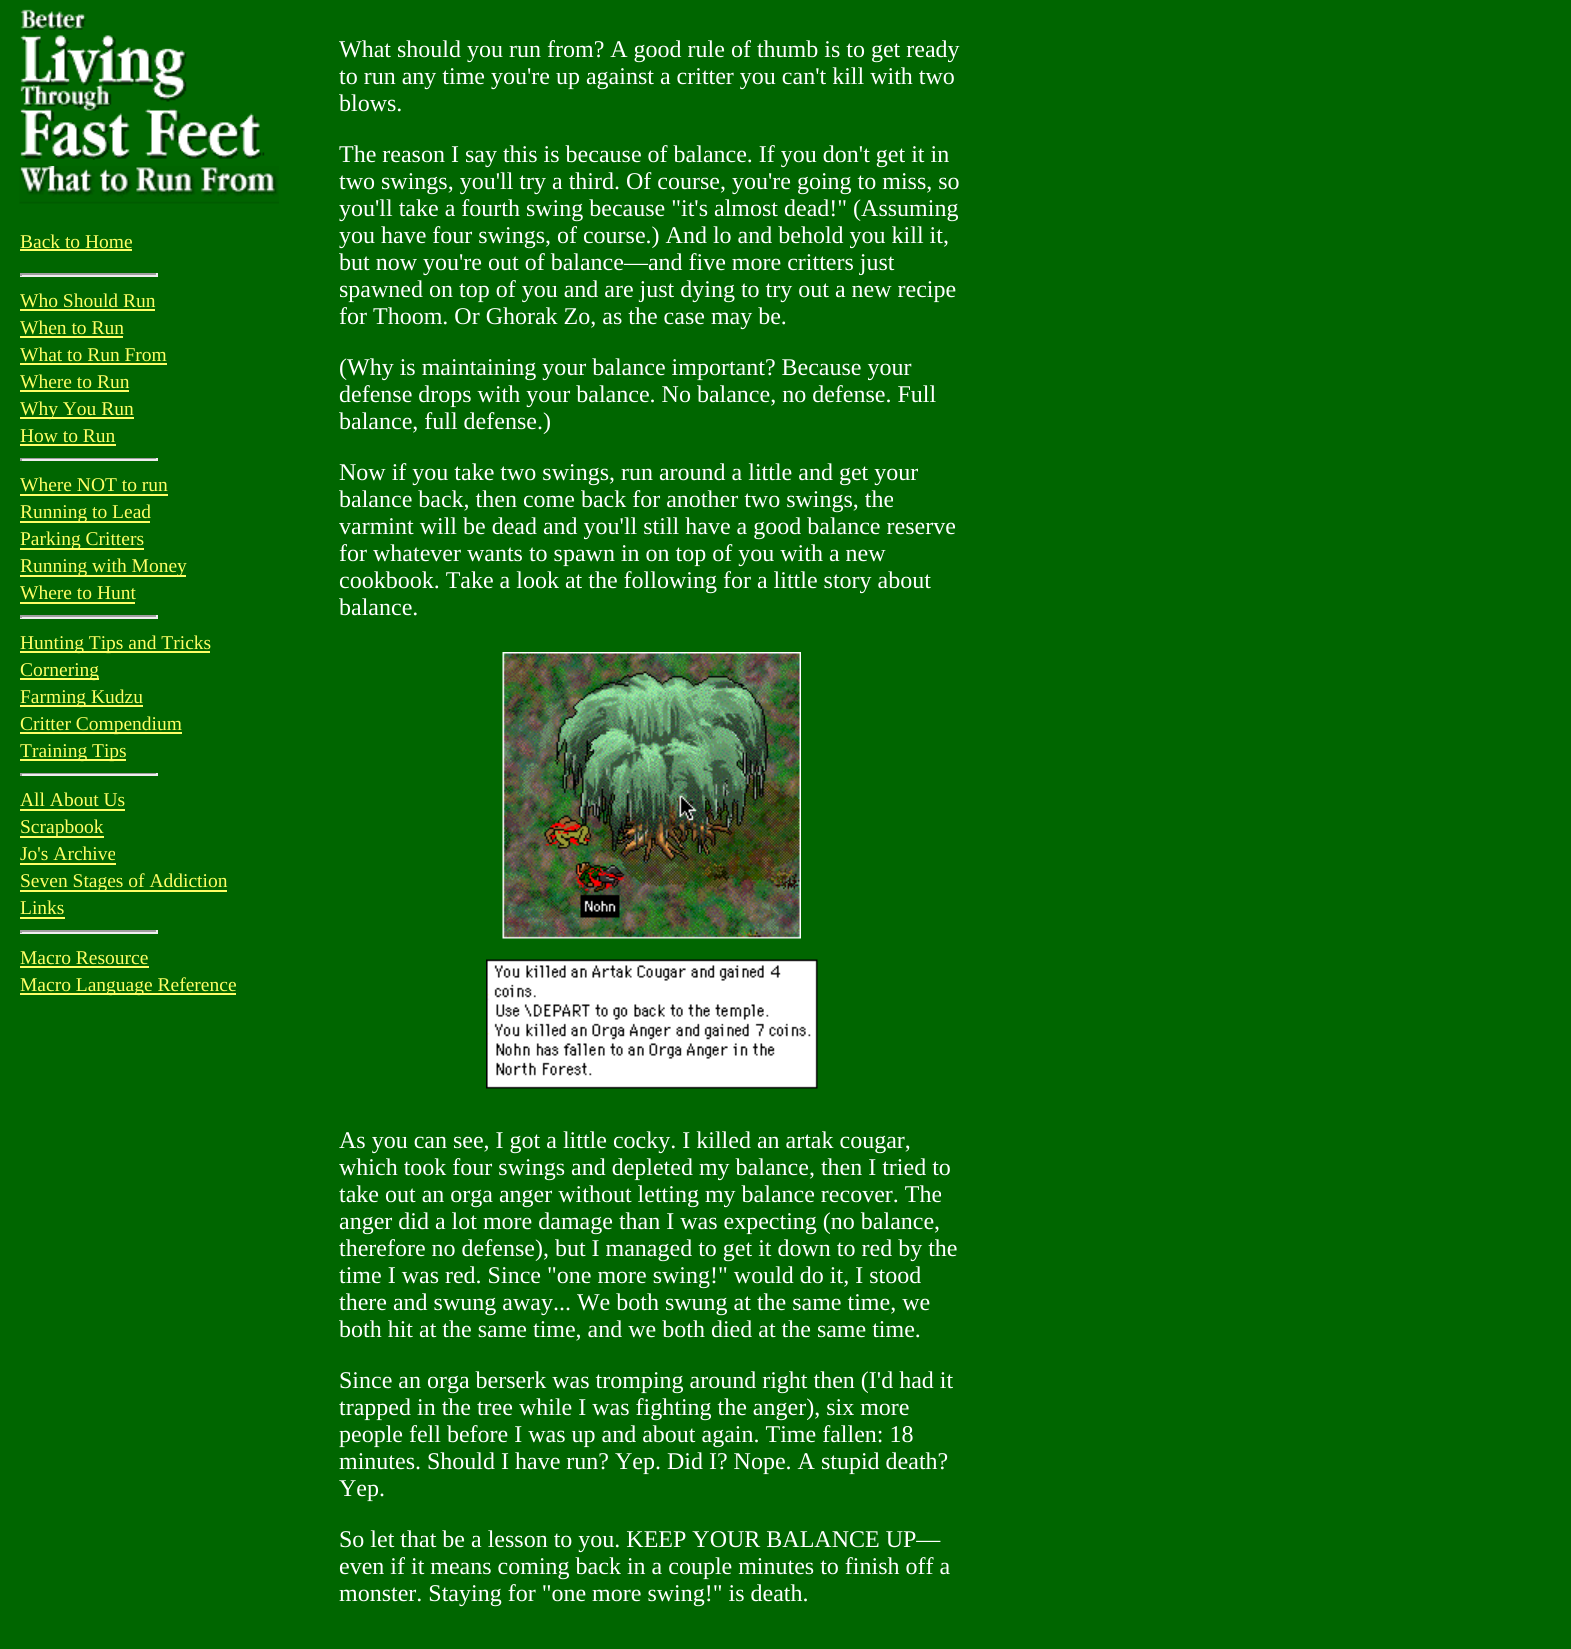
import math
import cairo



def draw_image(context, path, x, y, w, h):
    context.save()
    context.set_source_surface(cairo.ImageSurface.create_from_png(path), x, y)
    context.rectangle(x, y, w, h)
    context.fill()
    context.restore()


def draw(context):
    context.set_source_rgb(0, 102 / 255, 0)
    context.paint()
    draw_image(context, "images/1.png", 20, 9, 245, 151)
    draw_image(context, "images/2.png", 19, 166, 260, 38)
    context.set_source_rgb(1, 1, 102 / 255)
    context.rectangle(20, 249, 112, 2)
    context.fill()
    context.set_source_rgb(159 / 255, 159 / 255, 159 / 255)
    context.rectangle(20, 273, 138, 2)
    context.fill()
    context.set_source_rgb(238 / 255, 238 / 255, 238 / 255)
    context.rectangle(156, 273, 2, 3)
    context.fill()
    context.rectangle(20, 275, 138, 2)
    context.fill()
    context.set_source_rgb(159 / 255, 159 / 255, 159 / 255)
    context.rectangle(20, 273, 2, 3)
    context.fill()
    context.set_source_rgb(1, 1, 102 / 255)
    context.rectangle(20, 309, 135, 2)
    context.fill()
    context.rectangle(20, 336, 103, 2)
    context.fill()
    context.rectangle(20, 363, 147, 2)
    context.fill()
    context.rectangle(20, 390, 109, 2)
    context.fill()
    context.rectangle(20, 417, 114, 2)
    context.fill()
    context.rectangle(20, 444, 96, 2)
    context.fill()
    context.set_source_rgb(159 / 255, 159 / 255, 159 / 255)
    context.rectangle(20, 458, 138, 1)
    context.fill()
    context.set_source_rgb(238 / 255, 238 / 255, 238 / 255)
    context.rectangle(156, 458, 2, 3)
    context.fill()
    context.rectangle(20, 459, 138, 2)
    context.fill()
    context.set_source_rgb(159 / 255, 159 / 255, 159 / 255)
    context.rectangle(20, 458, 2, 3)
    context.fill()
    context.set_source_rgb(1, 1, 102 / 255)
    context.rectangle(20, 494, 148, 2)
    context.fill()
    context.rectangle(20, 521, 130, 2)
    context.fill()
    context.rectangle(20, 548, 124, 2)
    context.fill()
    context.rectangle(20, 575, 166, 2)
    context.fill()
    context.rectangle(20, 602, 115, 2)
    context.fill()
    context.set_source_rgb(159 / 255, 159 / 255, 159 / 255)
    context.rectangle(20, 615, 138, 2)
    context.fill()
    context.set_source_rgb(238 / 255, 238 / 255, 238 / 255)
    context.rectangle(156, 615, 2, 3)
    context.fill()
    context.rectangle(20, 617, 138, 2)
    context.fill()
    context.set_source_rgb(159 / 255, 159 / 255, 159 / 255)
    context.rectangle(20, 615, 2, 3)
    context.fill()
    context.set_source_rgb(1, 1, 102 / 255)
    context.rectangle(20, 651, 190, 2)
    context.fill()
    context.rectangle(20, 678, 79, 2)
    context.fill()
    context.rectangle(20, 705, 123, 2)
    context.fill()
    context.rectangle(20, 732, 162, 2)
    context.fill()
    context.rectangle(20, 759, 106, 2)
    context.fill()
    context.set_source_rgb(159 / 255, 159 / 255, 159 / 255)
    context.rectangle(20, 773, 138, 1)
    context.fill()
    context.set_source_rgb(238 / 255, 238 / 255, 238 / 255)
    context.rectangle(156, 773, 2, 3)
    context.fill()
    context.rectangle(20, 774, 138, 2)
    context.fill()
    context.set_source_rgb(159 / 255, 159 / 255, 159 / 255)
    context.rectangle(20, 773, 2, 3)
    context.fill()
    context.set_source_rgb(1, 1, 102 / 255)
    context.rectangle(20, 809, 105, 2)
    context.fill()
    context.rectangle(20, 836, 84, 2)
    context.fill()
    context.rectangle(20, 863, 96, 2)
    context.fill()
    context.rectangle(20, 890, 207, 2)
    context.fill()
    context.rectangle(20, 917, 45, 2)
    context.fill()
    context.set_source_rgb(159 / 255, 159 / 255, 159 / 255)
    context.rectangle(20, 930, 138, 2)
    context.fill()
    context.set_source_rgb(238 / 255, 238 / 255, 238 / 255)
    context.rectangle(156, 930, 2, 3)
    context.fill()
    context.rectangle(20, 932, 138, 2)
    context.fill()
    context.set_source_rgb(159 / 255, 159 / 255, 159 / 255)
    context.rectangle(20, 930, 2, 3)
    context.fill()
    context.set_source_rgb(1, 1, 102 / 255)
    context.rectangle(20, 966, 129, 2)
    context.fill()
    context.rectangle(20, 993, 216, 2)
    context.fill()
    draw_image(context, "images/3.png", 502, 652, 299, 287)
    draw_image(context, "images/4.png", 486, 959, 332, 130)
    context.select_font_face("Liberation Serif")
    context.set_font_size(19.5)
    context.move_to(20, 248)
    context.show_text("Back to Home")
    context.move_to(20, 307)
    context.show_text("Who Should Run")
    context.move_to(20, 334)
    context.show_text("When to Run")
    context.move_to(20, 361)
    context.show_text("What to Run From")
    context.move_to(20, 388)
    context.show_text("Where to Run")
    context.move_to(20, 415)
    context.show_text("Why You Run")
    context.move_to(20, 442)
    context.show_text("How to Run")
    context.move_to(20, 491)
    context.show_text("Where NOT to run")
    context.move_to(20, 518)
    context.show_text("Running to Lead")
    context.move_to(20, 545)
    context.show_text("Parking Critters")
    context.move_to(20, 572)
    context.show_text("Running with Money")
    context.move_to(20, 599)
    context.show_text("Where to Hunt")
    context.move_to(20, 649)
    context.show_text("Hunting Tips and Tricks")
    context.move_to(20, 676)
    context.show_text("Cornering")
    context.move_to(20, 703)
    context.show_text("Farming Kudzu")
    context.move_to(20, 730)
    context.show_text("Critter Compendium")
    context.move_to(20, 757)
    context.show_text("Training Tips")
    context.move_to(20, 806)
    context.show_text("All About Us")
    context.move_to(20, 833)
    context.show_text("Scrapbook")
    context.move_to(20, 860)
    context.show_text("Jo's Archive")
    context.move_to(20, 887)
    context.show_text("Seven Stages of Addiction")
    context.move_to(20, 914)
    context.show_text("Links")
    context.move_to(20, 964)
    context.show_text("Macro Resource")
    context.move_to(20, 991)
    context.show_text("Macro Language Reference")
    context.set_font_size(24)
    context.set_source_rgb(1, 1, 1)
    context.move_to(339, 57)
    context.show_text("What should you run from? A good rule of thumb is to get ready")
    context.move_to(339, 84)
    context.show_text("to run any time you're up against a critter you can't kill with two")
    context.move_to(339, 111)
    context.show_text("blows.")
    context.move_to(339, 162)
    context.show_text("The reason I say this is because of balance. If you don't get it in")
    context.move_to(339, 189)
    context.show_text("two swings, you'll try a third. Of course, you're going to miss, so")
    context.move_to(339, 216)
    context.show_text("you'll take a fourth swing because \"it's almost dead!\" (Assuming")
    context.move_to(339, 243)
    context.show_text("you have four swings, of course.) And lo and behold you kill it,")
    context.move_to(339, 270)
    context.show_text("but now you're out of balance—and five more critters just")
    context.move_to(339, 297)
    context.show_text("spawned on top of you and are just dying to try out a new recipe")
    context.move_to(339, 324)
    context.show_text("for Thoom. Or Ghorak Zo, as the case may be.")
    context.move_to(339, 375)
    context.show_text("(Why is maintaining your balance important? Because your")
    context.move_to(339, 402)
    context.show_text("defense drops with your balance. No balance, no defense. Full")
    context.move_to(339, 429)
    context.show_text("balance, full defense.)")
    context.move_to(339, 480)
    context.show_text("Now if you take two swings, run around a little and get your")
    context.move_to(339, 507)
    context.show_text("balance back, then come back for another two swings, the")
    context.move_to(339, 534)
    context.show_text("varmint will be dead and you'll still have a good balance reserve")
    context.move_to(339, 561)
    context.show_text("for whatever wants to spawn in on top of you with a new")
    context.move_to(339, 588)
    context.show_text("cookbook. Take a look at the following for a little story about")
    context.move_to(339, 615)
    context.show_text("balance.")
    context.move_to(339, 1148)
    context.show_text("As you can see, I got a little cocky. I killed an artak cougar,")
    context.move_to(339, 1175)
    context.show_text("which took four swings and depleted my balance, then I tried to")
    context.move_to(339, 1202)
    context.show_text("take out an orga anger without letting my balance recover. The")
    context.move_to(339, 1229)
    context.show_text("anger did a lot more damage than I was expecting (no balance,")
    context.move_to(339, 1256)
    context.show_text("therefore no defense), but I managed to get it down to red by the")
    context.move_to(339, 1283)
    context.show_text("time I was red. Since \"one more swing!\" would do it, I stood")
    context.move_to(339, 1310)
    context.show_text("there and swung away... We both swung at the same time, we")
    context.move_to(339, 1337)
    context.show_text("both hit at the same time, and we both died at the same time.")
    context.move_to(339, 1388)
    context.show_text("Since an orga berserk was tromping around right then (I'd had it")
    context.move_to(339, 1415)
    context.show_text("trapped in the tree while I was fighting the anger), six more")
    context.move_to(339, 1442)
    context.show_text("people fell before I was up and about again. Time fallen: 18")
    context.move_to(339, 1469)
    context.show_text("minutes. Should I have run? Yep. Did I? Nope. A stupid death?")
    context.move_to(339, 1496)
    context.show_text("Yep.")
    context.move_to(339, 1547)
    context.show_text("So let that be a lesson to you. KEEP YOUR BALANCE UP—")
    context.move_to(339, 1574)
    context.show_text("even if it means coming back in a couple minutes to finish off a")
    context.move_to(339, 1601)
    context.show_text("monster. Staying for \"one more swing!\" is death.")


surface = cairo.ImageSurface(cairo.Format.RGB24, 1571, 1649)
context = cairo.Context(surface)
options = cairo.FontOptions()
options.set_hint_metrics(cairo.HintMetrics.OFF)
options.set_hint_style(cairo.HintStyle.NONE)
context.set_font_options(options)
context.set_miter_limit(4)
draw(context)
surface.write_to_png("out.png")
